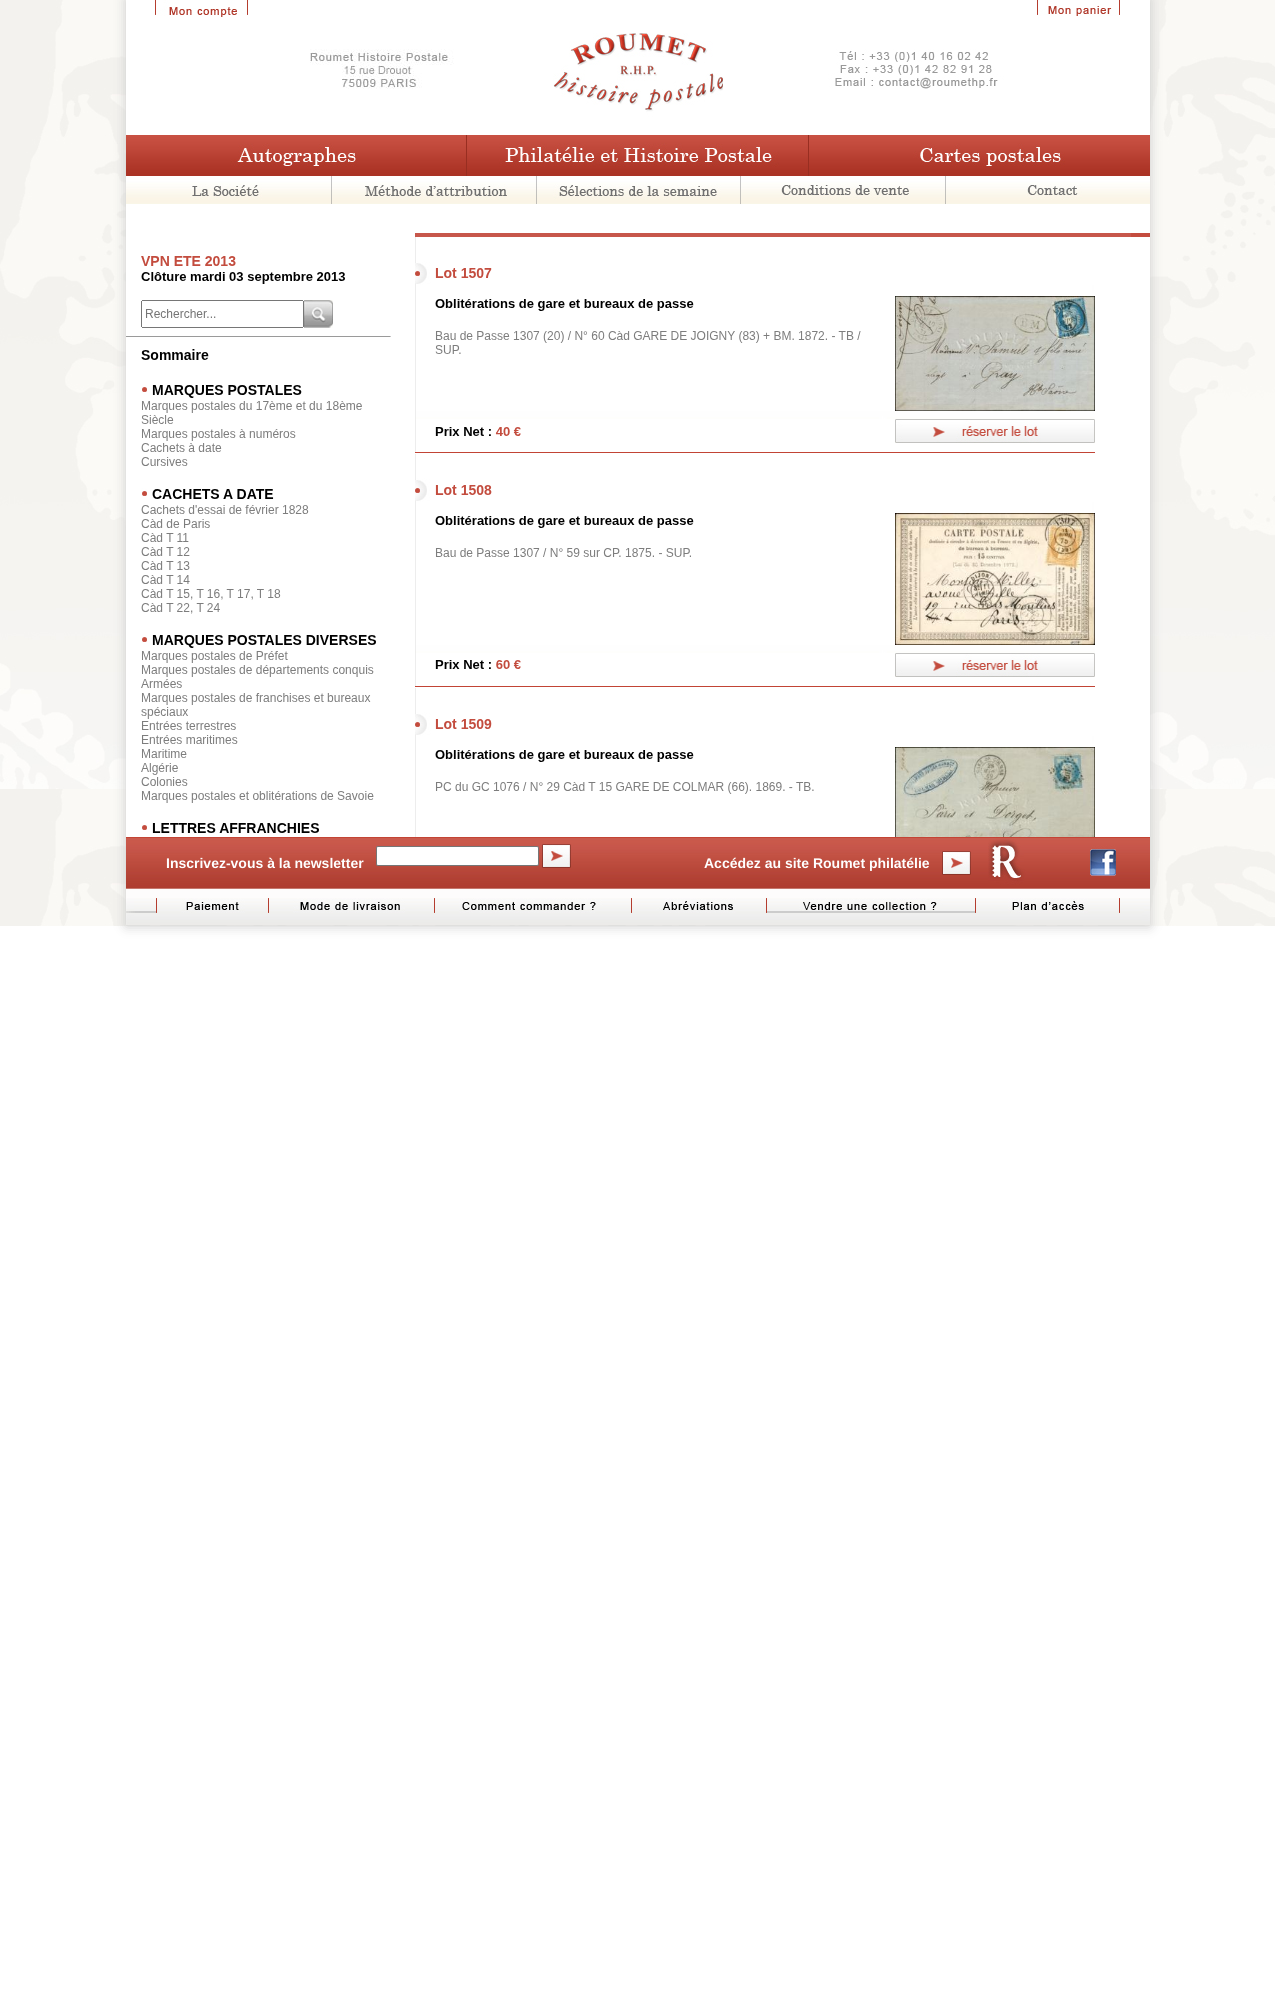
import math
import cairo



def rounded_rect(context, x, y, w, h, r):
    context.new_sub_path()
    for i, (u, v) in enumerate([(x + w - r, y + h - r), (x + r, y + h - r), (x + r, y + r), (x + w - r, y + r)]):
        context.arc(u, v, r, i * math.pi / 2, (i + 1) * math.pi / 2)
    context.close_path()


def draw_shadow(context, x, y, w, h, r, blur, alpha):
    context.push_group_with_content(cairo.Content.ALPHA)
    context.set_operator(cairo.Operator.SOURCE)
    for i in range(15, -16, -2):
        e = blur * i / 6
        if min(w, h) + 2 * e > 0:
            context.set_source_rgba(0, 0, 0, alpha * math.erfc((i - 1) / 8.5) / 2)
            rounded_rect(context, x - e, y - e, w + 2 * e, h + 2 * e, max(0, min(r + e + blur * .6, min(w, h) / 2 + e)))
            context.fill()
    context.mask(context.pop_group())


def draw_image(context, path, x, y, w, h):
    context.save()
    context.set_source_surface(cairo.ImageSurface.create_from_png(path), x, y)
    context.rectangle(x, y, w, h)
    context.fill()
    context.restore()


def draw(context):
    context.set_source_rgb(1, 1, 1)
    context.paint()
    draw_image(context, "images/1.png", 0, 0, 1275, 926)
    context.set_source_rgb(204 / 255, 204 / 255, 204 / 255)
    draw_shadow(context, 126, 0, 1024, 926, 0, 6, 1)
    context.set_source_rgb(1, 1, 1)
    context.rectangle(126, 0, 29, 20)
    context.fill()
    draw_image(context, "images/2.png", 155, 0, 93, 20)
    context.rectangle(248, 0, 789, 20)
    context.fill()
    draw_image(context, "images/3.png", 1037, 0, 83, 20)
    context.rectangle(1120, 0, 30, 20)
    context.fill()
    context.rectangle(126, 20, 1024, 13)
    context.fill()
    context.rectangle(126, 33, 176, 77)
    context.fill()
    draw_image(context, "images/4.png", 302, 33, 154, 77)
    context.rectangle(456, 33, 97, 77)
    context.fill()
    draw_image(context, "images/5.png", 553, 33, 170, 77)
    context.rectangle(723, 33, 105, 77)
    context.fill()
    draw_image(context, "images/6.png", 828, 33, 177, 77)
    context.rectangle(1005, 33, 145, 77)
    context.fill()
    draw_image(context, "images/7.png", 126, 110, 1024, 25)
    draw_image(context, "images/8.png", 126, 135, 340, 41)
    context.set_source_rgb(152 / 255, 46 / 255, 33 / 255)
    context.rectangle(466, 135, 1, 41)
    context.fill()
    draw_image(context, "images/9.png", 467, 135, 341, 41)
    context.rectangle(808, 135, 1, 41)
    context.fill()
    draw_image(context, "images/10.png", 809, 135, 341, 41)
    draw_image(context, "images/11.png", 126, 176, 205, 28)
    draw_image(context, "images/12.png", 331, 176, 1, 28)
    draw_image(context, "images/13.png", 332, 176, 204, 28)
    draw_image(context, "images/12.png", 536, 176, 1, 28)
    draw_image(context, "images/14.png", 537, 176, 203, 28)
    draw_image(context, "images/12.png", 740, 176, 1, 28)
    draw_image(context, "images/15.png", 741, 176, 204, 28)
    draw_image(context, "images/12.png", 945, 176, 1, 28)
    draw_image(context, "images/16.png", 946, 176, 204, 28)
    context.set_source_rgb(1, 1, 1)
    context.rectangle(126, 204, 1024, 29)
    context.fill()
    context.rectangle(126, 233, 289, 4)
    context.fill()
    context.set_source_rgb(199 / 255, 87 / 255, 75 / 255)
    context.rectangle(415, 233, 716, 4)
    context.fill()
    context.set_source_rgb(196 / 255, 76 / 255, 62 / 255)
    context.rectangle(1131, 233, 19, 4)
    context.fill()
    context.set_source_rgb(1, 1, 1)
    context.rectangle(126, 237, 289, 600)
    context.fill()
    draw_image(context, "images/17.png", 126, 256, 265, 577)
    draw_image(context, "images/18.png", 415, 237, 716, 600)
    context.rectangle(1131, 237, 19, 600)
    context.fill()
    draw_image(context, "images/19.png", 126, 837, 862, 52)
    rounded_rect(context, 376.5, 846.5, 162, 19, 1.5)
    context.fill_preserve()
    context.set_source_rgb(118 / 255, 118 / 255, 118 / 255)
    context.set_line_width(1)
    context.stroke()
    draw_image(context, "images/20.png", 542, 844, 29, 24)
    draw_image(context, "images/20.png", 942, 851, 29, 24)
    draw_image(context, "images/21.png", 988, 837, 36, 52)
    draw_image(context, "images/22.png", 1024, 837, 66, 52)
    draw_image(context, "images/23.png", 1090, 837, 26, 52)
    draw_image(context, "images/24.png", 1116, 837, 33, 52)
    draw_image(context, "images/25.png", 1149, 837, 1, 52)
    context.set_source_rgb(253 / 255, 252 / 255, 252 / 255)
    context.rectangle(126, 889, 1024, 9)
    context.fill()
    draw_image(context, "images/26.png", 126, 898, 30, 13)
    draw_image(context, "images/27.png", 156, 898, 1, 15)
    draw_image(context, "images/28.png", 157, 898, 111, 15)
    draw_image(context, "images/27.png", 268, 898, 1, 15)
    draw_image(context, "images/29.png", 269, 898, 165, 15)
    draw_image(context, "images/27.png", 434, 898, 1, 15)
    draw_image(context, "images/30.png", 435, 898, 196, 15)
    draw_image(context, "images/27.png", 631, 898, 1, 15)
    draw_image(context, "images/31.png", 632, 898, 134, 15)
    draw_image(context, "images/27.png", 766, 898, 1, 15)
    draw_image(context, "images/32.png", 767, 898, 208, 13)
    draw_image(context, "images/27.png", 975, 898, 1, 15)
    draw_image(context, "images/33.png", 976, 898, 143, 15)
    draw_image(context, "images/27.png", 1119, 898, 1, 15)
    draw_image(context, "images/34.png", 1120, 898, 30, 15)
    draw_image(context, "images/35.png", 126, 913, 1024, 12)
    context.select_font_face("Liberation Sans", cairo.FontSlant.NORMAL, cairo.FontWeight.BOLD)
    context.set_font_size(14)
    context.set_source_rgb(1, 1, 1)
    context.move_to(166, 868)
    context.show_text("Inscrivez-vous à la newsletter")
    context.move_to(704, 868)
    context.show_text("Accédez au site Roumet philatélie")


surface = cairo.ImageSurface(cairo.Format.RGB24, 1275, 1990)
context = cairo.Context(surface)
options = cairo.FontOptions()
options.set_hint_metrics(cairo.HintMetrics.OFF)
options.set_hint_style(cairo.HintStyle.NONE)
context.set_font_options(options)
context.set_miter_limit(4)
draw(context)
surface.write_to_png("out.png")
